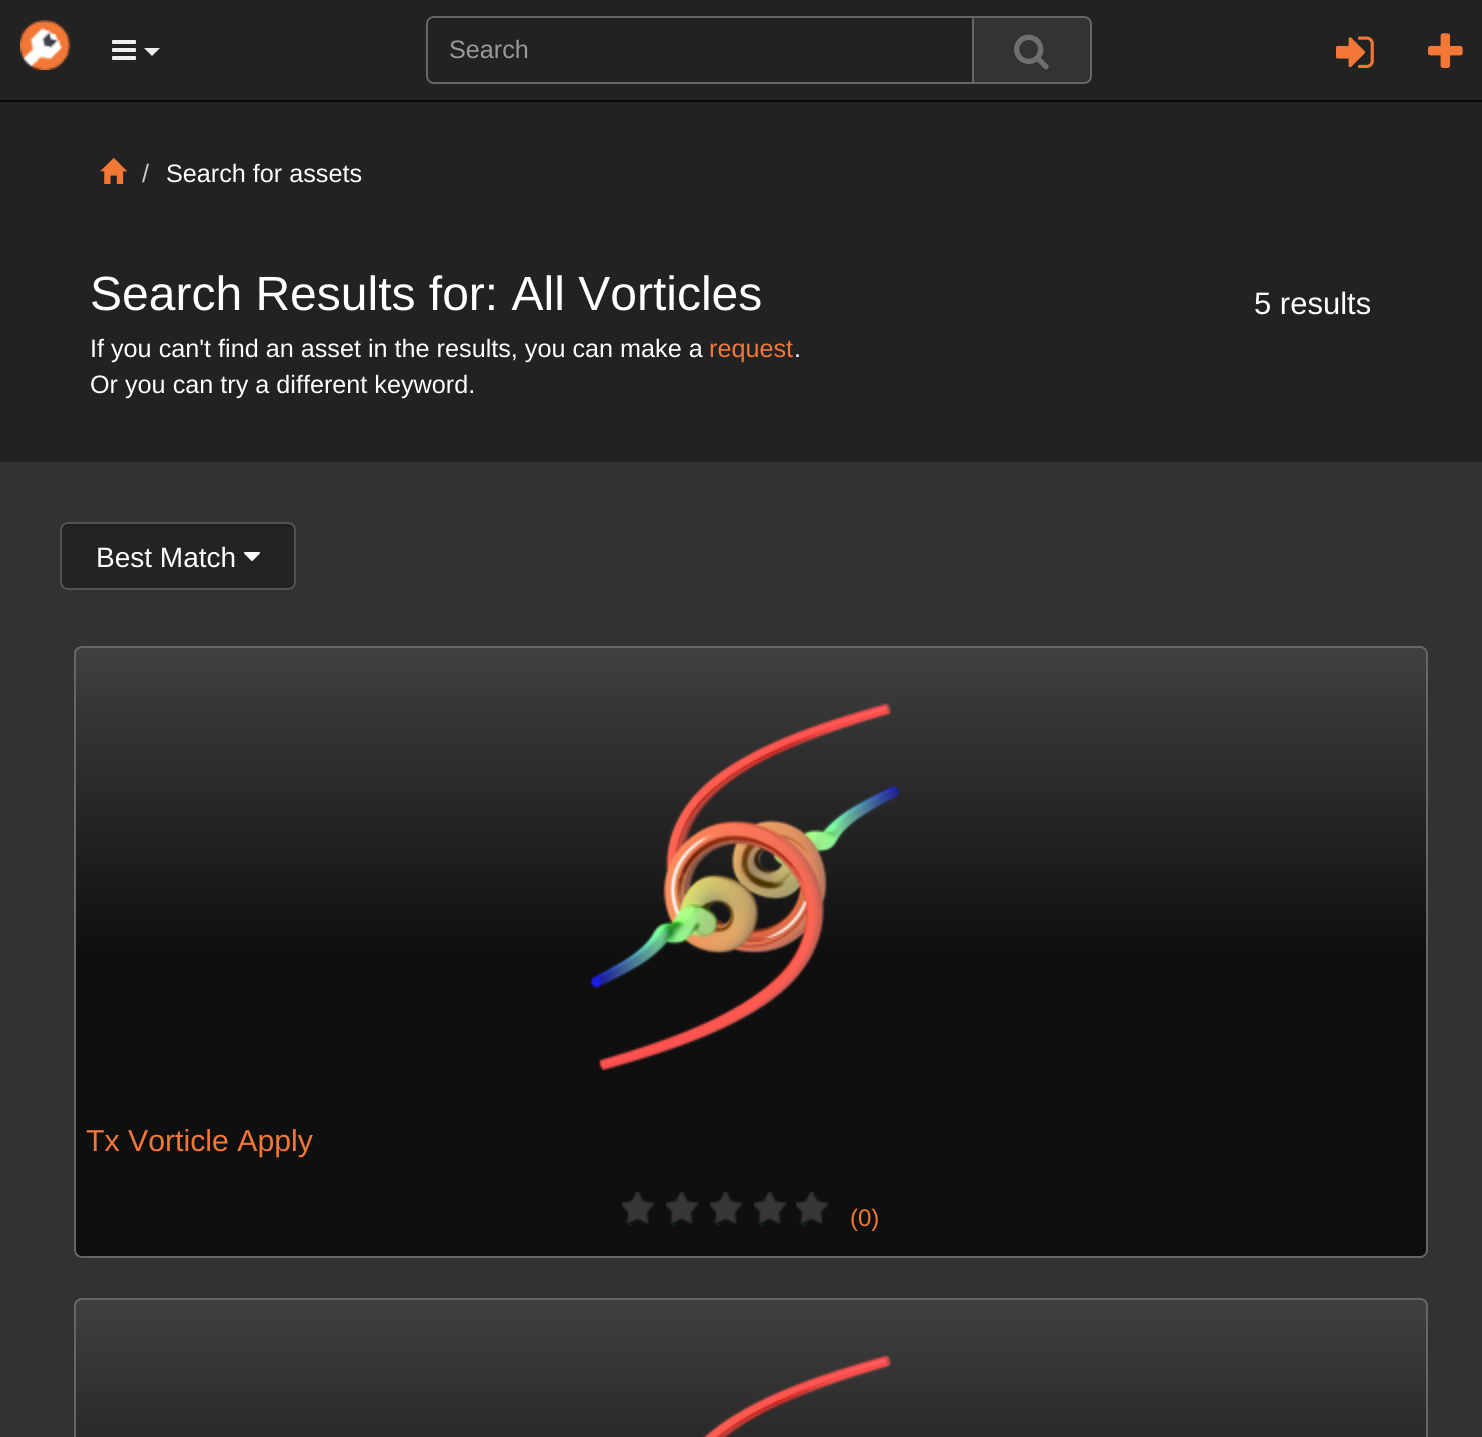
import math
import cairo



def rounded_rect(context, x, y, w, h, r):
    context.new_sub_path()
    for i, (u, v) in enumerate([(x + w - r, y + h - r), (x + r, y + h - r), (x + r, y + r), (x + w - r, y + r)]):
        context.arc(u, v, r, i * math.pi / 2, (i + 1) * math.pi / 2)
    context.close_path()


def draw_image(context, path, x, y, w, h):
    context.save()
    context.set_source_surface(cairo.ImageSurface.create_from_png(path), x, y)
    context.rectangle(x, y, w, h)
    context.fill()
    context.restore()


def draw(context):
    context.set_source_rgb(34 / 255, 34 / 255, 34 / 255)
    context.paint()
    context.set_source_rgb(8 / 255, 8 / 255, 8 / 255)
    context.rectangle(0, 100, 1482, 2)
    context.fill()
    draw_image(context, "images/1.png", 20, 20, 51, 50)
    draw_image(context, "images/2.png", 112, 40, 24, 20)
    context.set_source_rgb(238 / 255, 238 / 255, 238 / 255)
    context.new_path()
    context.move_to(144, 48)
    context.line_to(160, 48)
    context.line_to(152, 56)
    context.close_path()
    context.fill()
    context.set_source_rgb(31 / 255, 31 / 255, 31 / 255)
    context.new_path()
    context.move_to(434, 20)
    context.line_to(972, 20)
    context.line_to(972, 18)
    context.line_to(434, 18)
    context.curve_to(431, 18, 428, 21, 428, 24)
    context.line_to(428, 26)
    context.curve_to(428, 23, 431, 20, 434, 20)
    context.close_path()
    context.fill()
    context.new_path()
    context.move_to(434, 17)
    context.line_to(973, 17)
    context.line_to(973, 83)
    context.line_to(434, 83)
    context.curve_to(430, 83, 427, 80, 427, 76)
    context.line_to(427, 24)
    context.curve_to(427, 20, 430, 17, 434, 17)
    context.close_path()
    context.set_source_rgb(102 / 255, 102 / 255, 102 / 255)
    context.stroke()
    context.set_source_rgb(51 / 255, 51 / 255, 51 / 255)
    context.new_path()
    context.move_to(973, 17)
    context.line_to(1084, 17)
    context.curve_to(1088, 17, 1091, 20, 1091, 24)
    context.line_to(1091, 76)
    context.curve_to(1091, 80, 1088, 83, 1084, 83)
    context.line_to(973, 83)
    context.close_path()
    context.fill_preserve()
    context.set_source_rgb(102 / 255, 102 / 255, 102 / 255)
    context.stroke()
    draw_image(context, "images/3.png", 1014, 34, 35, 36)
    draw_image(context, "images/4.png", 1336, 36, 38, 32)
    draw_image(context, "images/5.png", 1428, 33, 35, 35)
    draw_image(context, "images/6.png", 100, 158, 27, 26)
    context.set_source_rgb(50 / 255, 50 / 255, 50 / 255)
    context.rectangle(0, 462, 1482, 975)
    context.fill()
    context.set_source_rgb(35 / 255, 35 / 255, 35 / 255)
    rounded_rect(context, 60, 522, 236, 68, 8)
    context.fill()
    context.set_source_rgb(32 / 255, 32 / 255, 32 / 255)
    context.new_path()
    context.move_to(68, 526)
    context.line_to(288, 526)
    context.curve_to(291, 526, 294, 529, 294, 532)
    context.line_to(294, 530)
    context.curve_to(294, 527, 291, 524, 288, 524)
    context.line_to(68, 524)
    context.curve_to(65, 524, 62, 527, 62, 530)
    context.line_to(62, 532)
    context.curve_to(62, 529, 65, 526, 68, 526)
    context.close_path()
    context.fill()
    rounded_rect(context, 61, 523, 234, 66, 7)
    context.set_source_rgb(83 / 255, 83 / 255, 83 / 255)
    context.stroke()
    draw_image(context, "images/7.png", 244, 552, 16, 9)
    context.save()
    rounded_rect(context, 74, 646, 1354, 612, 8)
    context.clip()
    gradient = cairo.LinearGradient(751, 648, 751, 1256)
    gradient.add_color_stop_rgba(0, 64 / 255, 64 / 255, 64 / 255, 1)
    gradient.add_color_stop_rgba(0.5, 15 / 255, 15 / 255, 15 / 255, 1)
    context.set_source(gradient)
    context.rectangle(74, 648, 1354, 608)
    context.fill()
    context.restore()
    rounded_rect(context, 75, 647, 1352, 610, 7)
    context.set_source_rgb(102 / 255, 102 / 255, 102 / 255)
    context.stroke()
    draw_image(context, "images/8.png", 589, 702, 312, 369)
    draw_image(context, "images/9.png", 622, 1192, 34, 34)
    draw_image(context, "images/9.png", 666, 1192, 34, 34)
    draw_image(context, "images/9.png", 710, 1192, 34, 34)
    draw_image(context, "images/9.png", 754, 1192, 34, 34)
    draw_image(context, "images/9.png", 796, 1192, 34, 34)
    context.save()
    rounded_rect(context, 74, 1298, 1354, 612, 8)
    context.clip()
    gradient = cairo.LinearGradient(751, 1300, 751, 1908)
    gradient.add_color_stop_rgba(0, 64 / 255, 64 / 255, 64 / 255, 1)
    gradient.add_color_stop_rgba(0.5, 15 / 255, 15 / 255, 15 / 255, 1)
    context.set_source(gradient)
    context.rectangle(74, 1300, 1354, 137)
    context.fill()
    context.restore()
    rounded_rect(context, 75, 1299, 1352, 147, 7)
    context.stroke()
    draw_image(context, "images/10.png", 703, 1354, 190, 83)
    context.select_font_face("Liberation Sans")
    context.set_font_size(25.2)
    context.set_source_rgb(153 / 255, 153 / 255, 153 / 255)
    context.move_to(449, 58)
    context.show_text("Search")
    context.set_source_rgb(204 / 255, 204 / 255, 204 / 255)
    context.move_to(142, 182)
    context.show_text("/")
    context.set_source_rgb(1, 1, 1)
    context.move_to(166, 182)
    context.show_text("Search for assets")
    context.set_font_size(48)
    context.move_to(90, 310)
    context.show_text("Search Results for: All Vorticles")
    context.set_font_size(31)
    context.move_to(1254, 314)
    context.show_text("5 results")
    context.set_font_size(25.2)
    context.move_to(90, 357)
    context.show_text("If you can't find an asset in the results, you can make a")
    context.set_source_rgb(243 / 255, 119 / 255, 54 / 255)
    context.move_to(709, 357)
    context.show_text("request")
    context.set_source_rgb(1, 1, 1)
    context.move_to(794, 357)
    context.show_text(".")
    context.move_to(90, 393)
    context.show_text("Or you can try a different keyword.")
    context.set_font_size(28)
    context.move_to(96, 567)
    context.show_text("Best Match")
    context.set_font_size(30.25)
    context.set_source_rgb(243 / 255, 119 / 255, 54 / 255)
    context.move_to(86, 1151)
    context.show_text("Tx Vorticle Apply")
    context.set_font_size(24)
    context.move_to(850, 1226)
    context.show_text("(0)")


surface = cairo.ImageSurface(cairo.Format.RGB24, 1482, 1437)
context = cairo.Context(surface)
options = cairo.FontOptions()
options.set_hint_metrics(cairo.HintMetrics.OFF)
options.set_hint_style(cairo.HintStyle.NONE)
context.set_font_options(options)
context.set_miter_limit(4)
draw(context)
surface.write_to_png("out.png")
